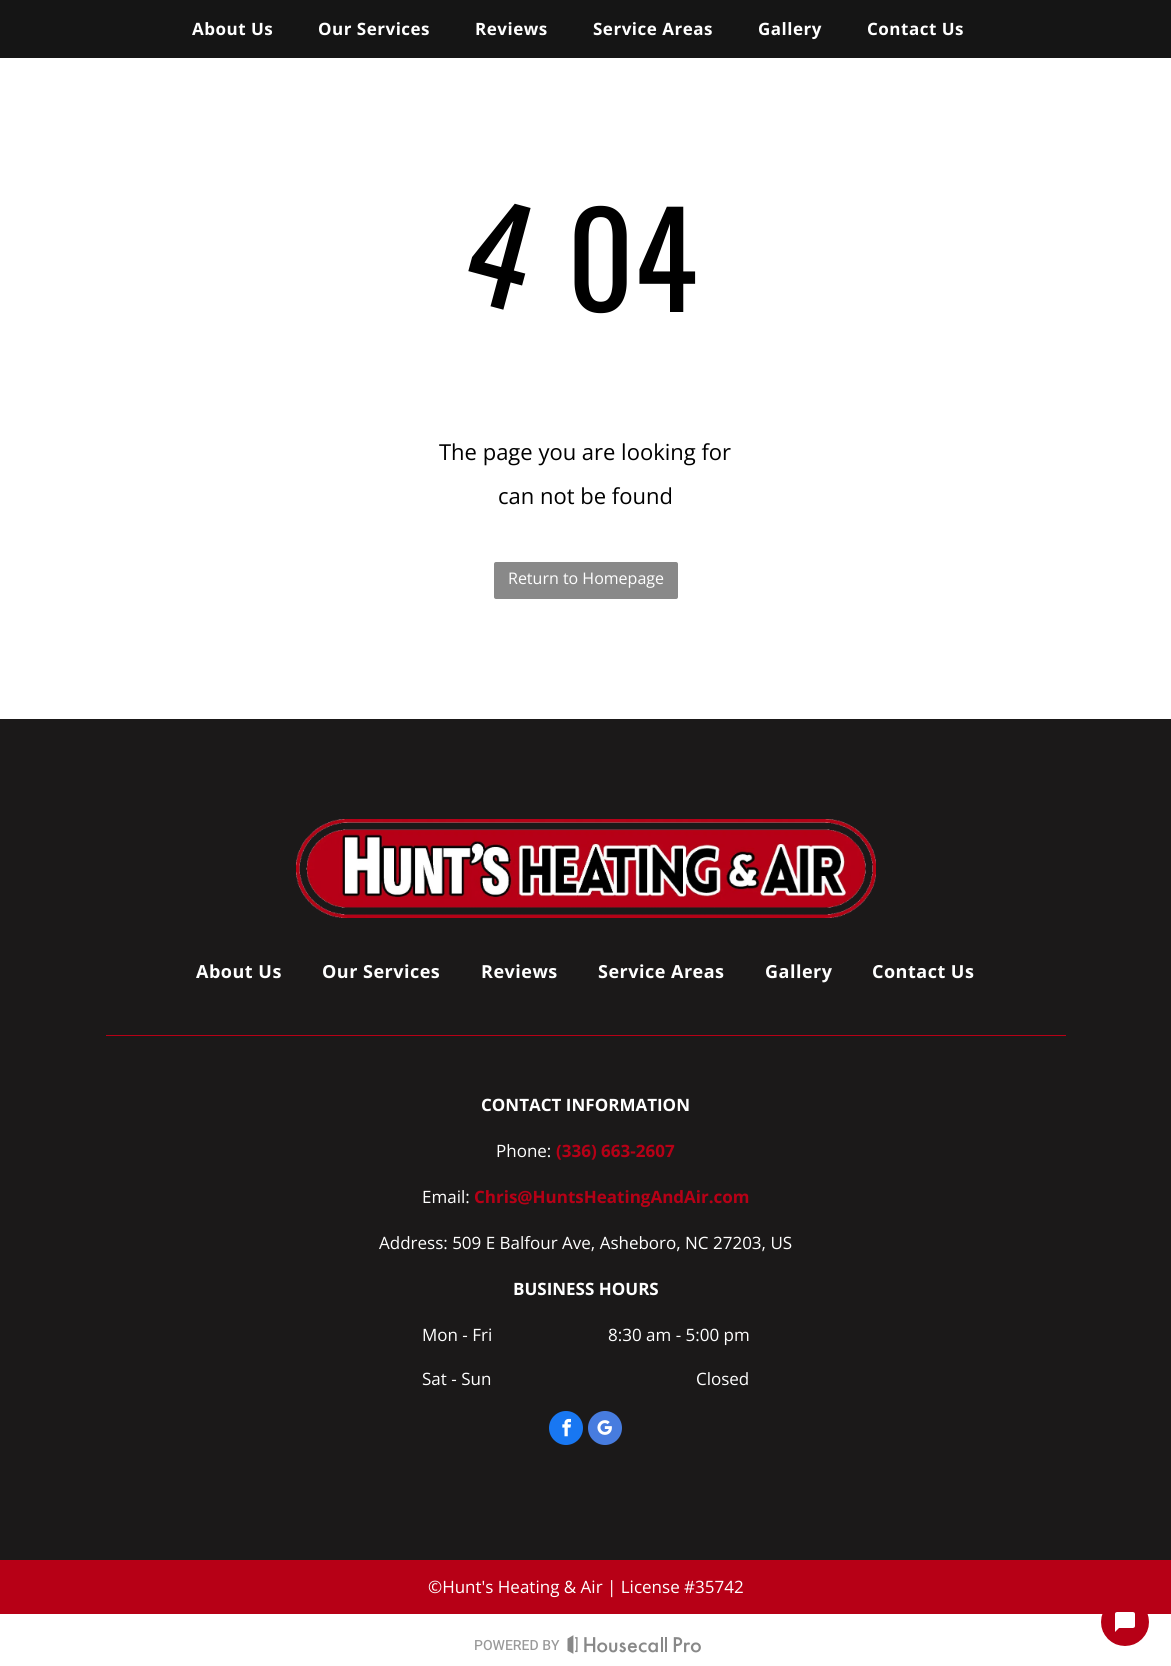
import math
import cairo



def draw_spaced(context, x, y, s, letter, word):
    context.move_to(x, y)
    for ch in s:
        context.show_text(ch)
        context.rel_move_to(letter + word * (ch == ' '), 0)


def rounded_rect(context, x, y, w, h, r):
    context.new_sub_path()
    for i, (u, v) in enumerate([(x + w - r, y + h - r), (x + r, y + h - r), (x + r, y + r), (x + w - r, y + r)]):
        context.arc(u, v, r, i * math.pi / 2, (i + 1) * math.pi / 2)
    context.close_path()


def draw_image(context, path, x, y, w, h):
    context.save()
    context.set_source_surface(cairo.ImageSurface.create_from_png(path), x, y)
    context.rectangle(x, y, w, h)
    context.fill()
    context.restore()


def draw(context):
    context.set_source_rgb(1, 1, 1)
    context.paint()
    context.set_source_rgb(21 / 255, 21 / 255, 21 / 255)
    context.rectangle(0, 0, 1171, 58)
    context.fill()
    context.set_source_rgb(137 / 255, 137 / 255, 137 / 255)
    rounded_rect(context, 494, 562, 184, 37, 2)
    context.fill()
    context.set_source_rgb(27 / 255, 25 / 255, 25 / 255)
    context.rectangle(0, 719, 1171, 841)
    context.fill()
    draw_image(context, "images/1.png", 296, 819, 580, 99)
    context.set_source_rgb(183 / 255, 0, 22 / 255)
    context.rectangle(106, 1035, 960, 1)
    context.fill()
    context.set_source_rgb(24 / 255, 119 / 255, 242 / 255)
    context.arc(566, 1428, 17, 0, 2 * math.pi)
    context.fill()
    draw_image(context, "images/2.png", 562, 1418, 9, 19)
    context.set_source_rgb(71 / 255, 124 / 255, 223 / 255)
    context.arc(605, 1428, 17, 0, 2 * math.pi)
    context.fill()
    draw_image(context, "images/3.png", 597, 1420, 15, 15)
    context.set_source_rgb(183 / 255, 0, 22 / 255)
    context.rectangle(0, 1560, 1171, 54)
    context.fill()
    draw_image(context, "images/4.png", 567, 1635, 134, 19)
    draw_image(context, "images/5.png", 1101, 1612, 48, 34)
    context.select_font_face("Open Sans", cairo.FontSlant.NORMAL, cairo.FontWeight.BOLD)
    context.set_font_size(17)
    context.set_source_rgb(1, 1, 1)
    draw_spaced(context, 192, 35, "About Us", 0.5, 0)
    draw_spaced(context, 318, 35, "Our Services", 0.5, 0)
    draw_spaced(context, 475, 35, "Reviews", 0.5, 0)
    draw_spaced(context, 593, 35, "Service Areas", 0.5, 0)
    draw_spaced(context, 758, 35, "Gallery", 0.5, 0)
    draw_spaced(context, 867, 35, "Contact Us", 0.5, 0)
    context.select_font_face("Oswald")
    context.set_font_size(130)
    context.set_source_rgb(0, 0, 0)
    context.save()
    context.translate(456, 297)
    context.rotate(15 * math.pi / 180)
    context.move_to(0, 0)
    context.show_text("4")
    context.restore()
    context.move_to(567, 312)
    context.show_text("04")
    context.select_font_face("Open Sans")
    context.set_font_size(22)
    context.move_to(439, 460)
    context.show_text("The page you are looking for")
    context.move_to(498, 504)
    context.show_text("can not be found")
    context.set_font_size(16)
    context.set_source_rgb(1, 1, 1)
    context.move_to(508, 584)
    context.show_text("Return to Homepage")
    context.select_font_face("Open Sans", cairo.FontSlant.NORMAL, cairo.FontWeight.BOLD)
    context.set_font_size(18)
    draw_spaced(context, 196, 978, "About Us", 0.5, 0)
    draw_spaced(context, 322, 978, "Our Services", 0.5, 0)
    draw_spaced(context, 481, 978, "Reviews", 0.5, 0)
    draw_spaced(context, 598, 978, "Service Areas", 0.5, 0)
    draw_spaced(context, 765, 978, "Gallery", 0.5, 0)
    draw_spaced(context, 872, 978, "Contact Us", 0.5, 0)
    context.set_font_size(17)
    context.move_to(481, 1111)
    context.show_text("CONTACT INFORMATION")
    context.select_font_face("Open Sans")
    context.move_to(496, 1157)
    context.show_text("Phone:")
    context.select_font_face("Open Sans", cairo.FontSlant.NORMAL, cairo.FontWeight.BOLD)
    context.set_source_rgb(183 / 255, 0, 22 / 255)
    context.move_to(556, 1157)
    context.show_text("(336) 663-2607")
    context.select_font_face("Open Sans")
    context.set_source_rgb(1, 1, 1)
    context.move_to(422, 1203)
    context.show_text("Email:")
    context.select_font_face("Open Sans", cairo.FontSlant.NORMAL, cairo.FontWeight.BOLD)
    context.set_source_rgb(183 / 255, 0, 22 / 255)
    context.move_to(474, 1203)
    context.show_text("Chris@HuntsHeatingAndAir.com")
    context.select_font_face("Open Sans")
    context.set_source_rgb(1, 1, 1)
    context.move_to(379, 1249)
    context.show_text("Address: 509 E Balfour Ave, Asheboro, NC 27203, US")
    context.select_font_face("Open Sans", cairo.FontSlant.NORMAL, cairo.FontWeight.BOLD)
    context.move_to(513, 1295)
    context.show_text("BUSINESS HOURS")
    context.select_font_face("Open Sans")
    context.move_to(422, 1341)
    context.show_text("Mon - Fri")
    context.move_to(608, 1341)
    context.show_text("8:30 am - 5:00 pm")
    context.move_to(422, 1385)
    context.show_text("Sat - Sun")
    context.move_to(696, 1385)
    context.show_text("Closed")
    context.move_to(428, 1593)
    context.show_text("©Hunt's Heating & Air | License #35742")
    context.select_font_face("Heebo Medium")
    context.set_font_size(14)
    context.set_source_rgb(153 / 255, 153 / 255, 153 / 255)
    context.move_to(474, 1650)
    context.show_text("POWERED BY")


surface = cairo.ImageSurface(cairo.Format.RGB24, 1171, 1666)
context = cairo.Context(surface)
options = cairo.FontOptions()
options.set_hint_metrics(cairo.HintMetrics.OFF)
options.set_hint_style(cairo.HintStyle.NONE)
context.set_font_options(options)
context.set_miter_limit(4)
draw(context)
surface.write_to_png("out.png")
